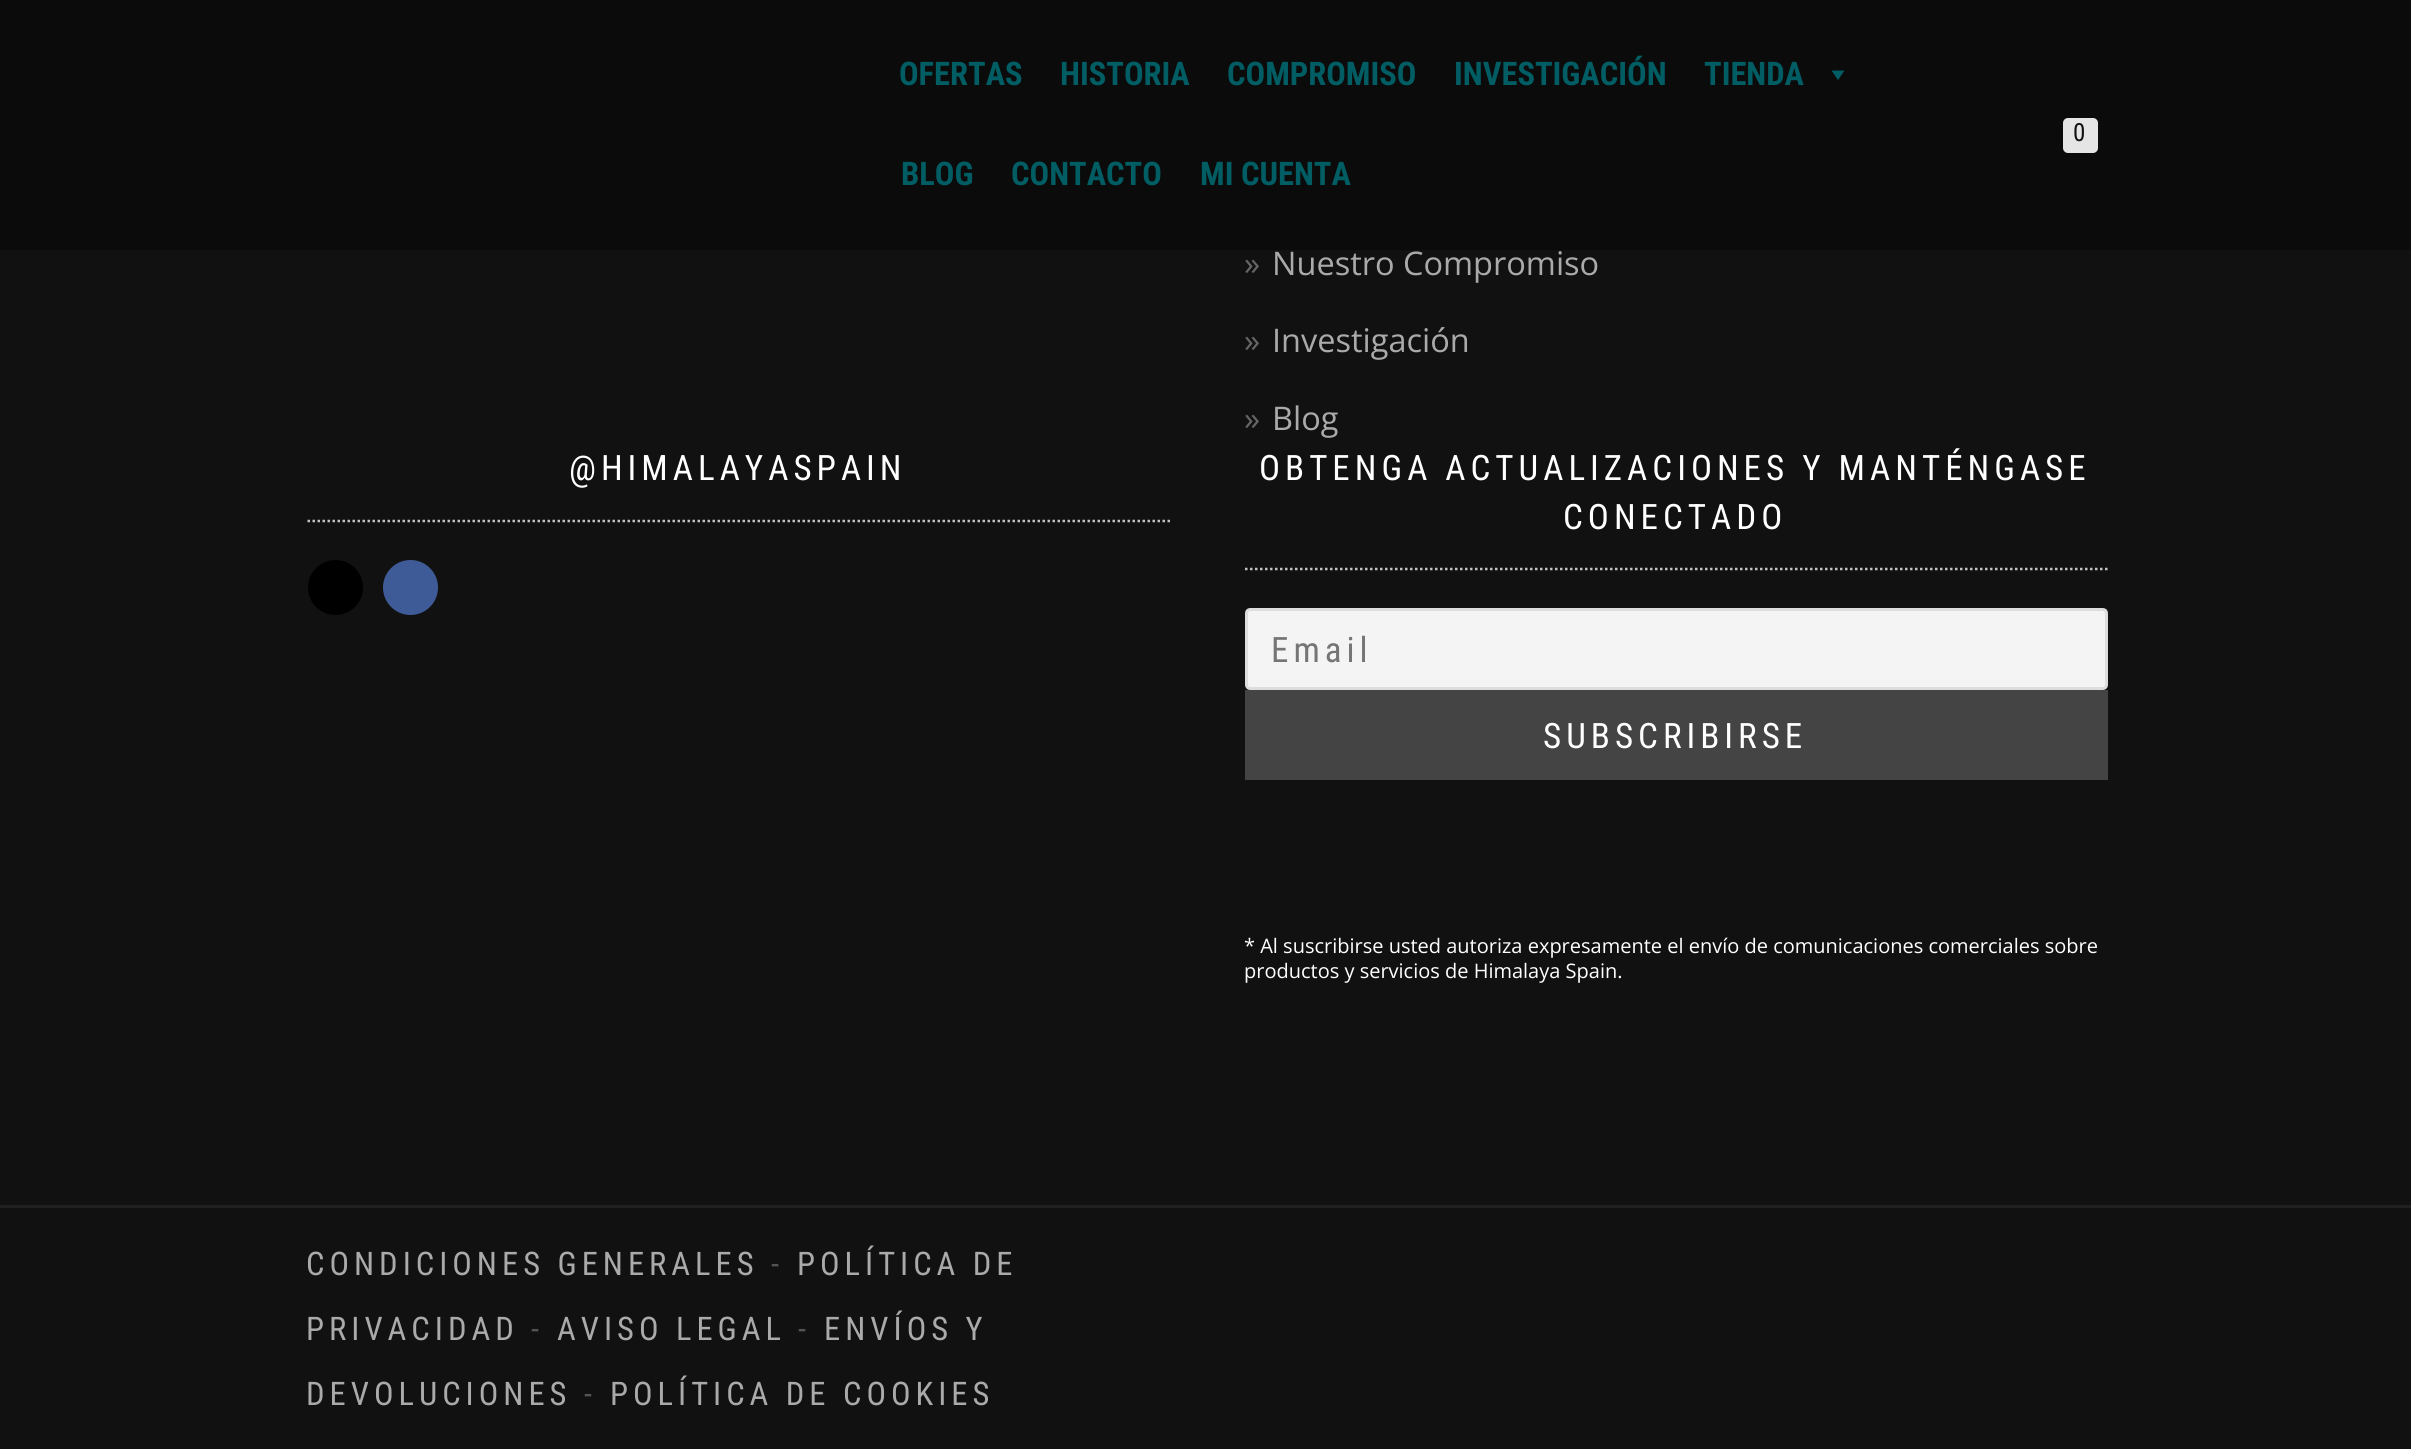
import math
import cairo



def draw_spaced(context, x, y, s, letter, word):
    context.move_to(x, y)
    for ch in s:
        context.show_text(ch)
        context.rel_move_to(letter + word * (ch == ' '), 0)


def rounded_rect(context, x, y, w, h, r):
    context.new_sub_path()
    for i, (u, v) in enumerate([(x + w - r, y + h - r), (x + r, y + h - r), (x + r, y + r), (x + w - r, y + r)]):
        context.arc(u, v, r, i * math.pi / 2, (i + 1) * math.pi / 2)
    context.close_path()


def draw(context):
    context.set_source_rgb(17 / 255, 17 / 255, 17 / 255)
    context.paint()
    context.set_source_rgb(11 / 255, 11 / 255, 11 / 255)
    context.rectangle(0, 0, 2411, 250)
    context.fill()
    context.set_source_rgb(0, 93 / 255, 99 / 255)
    context.new_path()
    context.move_to(1844.5, 70.5)
    context.line_to(1838, 80)
    context.line_to(1831.5, 70.5)
    context.close_path()
    context.fill()
    context.set_source_rgb(229 / 255, 229 / 255, 229 / 255)
    rounded_rect(context, 2063, 118, 35, 35, 5)
    context.fill()
    context.new_path()
    context.move_to(307.5, 521)
    context.line_to(1170, 521)
    context.set_source_rgb(194 / 255, 194 / 255, 194 / 255)
    context.set_line_width(2.5)
    context.set_dash([2.5, 2.5])
    context.stroke()
    context.set_source_rgb(0, 0, 0)
    context.arc(335.5, 587.5, 27.5, 0, 2 * math.pi)
    context.fill()
    context.set_source_rgb(62 / 255, 91 / 255, 152 / 255)
    context.arc(410.5, 587.5, 27.5, 0, 2 * math.pi)
    context.fill()
    context.new_path()
    context.move_to(1245, 569)
    context.line_to(2107.5, 569)
    context.set_source_rgb(194 / 255, 194 / 255, 194 / 255)
    context.stroke()
    context.set_source_rgb(244 / 255, 244 / 255, 244 / 255)
    rounded_rect(context, 1246.5, 609.5, 860, 79, 3.5)
    context.fill_preserve()
    context.set_source_rgb(221 / 255, 221 / 255, 221 / 255)
    context.set_line_width(3)
    context.set_dash([])
    context.stroke()
    context.set_source_rgb(68 / 255, 68 / 255, 68 / 255)
    context.rectangle(1245, 690, 863, 90)
    context.fill()
    context.set_source_rgb(32 / 255, 32 / 255, 32 / 255)
    context.rectangle(0, 1205, 2411, 3)
    context.fill()
    context.select_font_face("Roboto Condensed", cairo.FontSlant.NORMAL, cairo.FontWeight.BOLD)
    context.set_font_size(32.5)
    context.set_source_rgb(0, 93 / 255, 99 / 255)
    context.move_to(899, 85)
    context.show_text("OFERTAS")
    context.move_to(1060, 85)
    context.show_text("HISTORIA")
    context.move_to(1227, 85)
    context.show_text("COMPROMISO")
    context.move_to(1454, 85)
    context.show_text("INVESTIGACIÓN")
    context.move_to(1704, 85)
    context.show_text("TIENDA")
    context.move_to(901, 185)
    context.show_text("BLOG")
    context.move_to(1011, 185)
    context.show_text("CONTACTO")
    context.move_to(1200, 185)
    context.show_text("MI CUENTA")
    context.select_font_face("Roboto Condensed")
    context.set_font_size(25)
    context.set_source_rgb(17 / 255, 17 / 255, 17 / 255)
    context.move_to(2073, 141)
    context.show_text("0")
    context.select_font_face("Open Sans")
    context.set_font_size(32.5)
    context.set_source_rgb(102 / 255, 102 / 255, 102 / 255)
    context.move_to(1244, 275)
    context.show_text("»")
    context.set_source_rgb(170 / 255, 170 / 255, 170 / 255)
    context.move_to(1272, 275)
    context.show_text("Nuestro Compromiso")
    context.set_source_rgb(102 / 255, 102 / 255, 102 / 255)
    context.move_to(1244, 352)
    context.show_text("»")
    context.set_source_rgb(170 / 255, 170 / 255, 170 / 255)
    context.move_to(1272, 352)
    context.show_text("Investigación")
    context.set_source_rgb(102 / 255, 102 / 255, 102 / 255)
    context.move_to(1244, 430)
    context.show_text("»")
    context.set_source_rgb(170 / 255, 170 / 255, 170 / 255)
    context.move_to(1272, 430)
    context.show_text("Blog")
    context.select_font_face("Roboto Condensed")
    context.set_font_size(35)
    context.set_source_rgb(1, 1, 1)
    draw_spaced(context, 569, 480, "@HIMALAYASPAIN", 5, 0)
    draw_spaced(context, 1259, 480, "OBTENGA ACTUALIZACIONES Y MANTÉNGASE", 5, 0)
    draw_spaced(context, 1563, 529, "CONECTADO", 5, 0)
    context.set_source_rgb(117 / 255, 117 / 255, 117 / 255)
    draw_spaced(context, 1271, 662, "Email", 5, 0)
    context.set_source_rgb(1, 1, 1)
    draw_spaced(context, 1543, 748, "SUBSCRIBIRSE", 5, 0)
    context.select_font_face("Open Sans")
    context.set_font_size(20)
    context.move_to(1244, 953)
    context.show_text("* Al suscribirse usted autoriza expresamente el envío de comunicaciones comerciales sobre")
    context.move_to(1244, 978)
    context.show_text("productos y servicios de Himalaya Spain.")
    context.select_font_face("Roboto Condensed")
    context.set_font_size(32.5)
    context.set_source_rgb(170 / 255, 170 / 255, 170 / 255)
    draw_spaced(context, 306, 1275, "CONDICIONES GENERALES", 5, 0)
    context.set_source_rgb(84 / 255, 84 / 255, 84 / 255)
    draw_spaced(context, 771, 1275, "-", 5, 0)
    context.set_source_rgb(170 / 255, 170 / 255, 170 / 255)
    draw_spaced(context, 797, 1275, "POLÍTICA DE", 5, 0)
    draw_spaced(context, 306, 1340, "PRIVACIDAD", 5, 0)
    context.set_source_rgb(84 / 255, 84 / 255, 84 / 255)
    draw_spaced(context, 531, 1340, "-", 5, 0)
    context.set_source_rgb(170 / 255, 170 / 255, 170 / 255)
    draw_spaced(context, 557, 1340, "AVISO LEGAL", 5, 0)
    context.set_source_rgb(84 / 255, 84 / 255, 84 / 255)
    draw_spaced(context, 798, 1340, "-", 5, 0)
    context.set_source_rgb(170 / 255, 170 / 255, 170 / 255)
    draw_spaced(context, 824, 1340, "ENVÍOS Y", 5, 0)
    draw_spaced(context, 306, 1405, "DEVOLUCIONES", 5, 0)
    context.set_source_rgb(84 / 255, 84 / 255, 84 / 255)
    draw_spaced(context, 584, 1405, "-", 5, 0)
    context.set_source_rgb(170 / 255, 170 / 255, 170 / 255)
    draw_spaced(context, 610, 1405, "POLÍTICA DE COOKIES", 5, 0)


surface = cairo.ImageSurface(cairo.Format.RGB24, 2411, 1449)
context = cairo.Context(surface)
options = cairo.FontOptions()
options.set_hint_metrics(cairo.HintMetrics.OFF)
options.set_hint_style(cairo.HintStyle.NONE)
context.set_font_options(options)
context.set_miter_limit(4)
draw(context)
surface.write_to_png("out.png")
